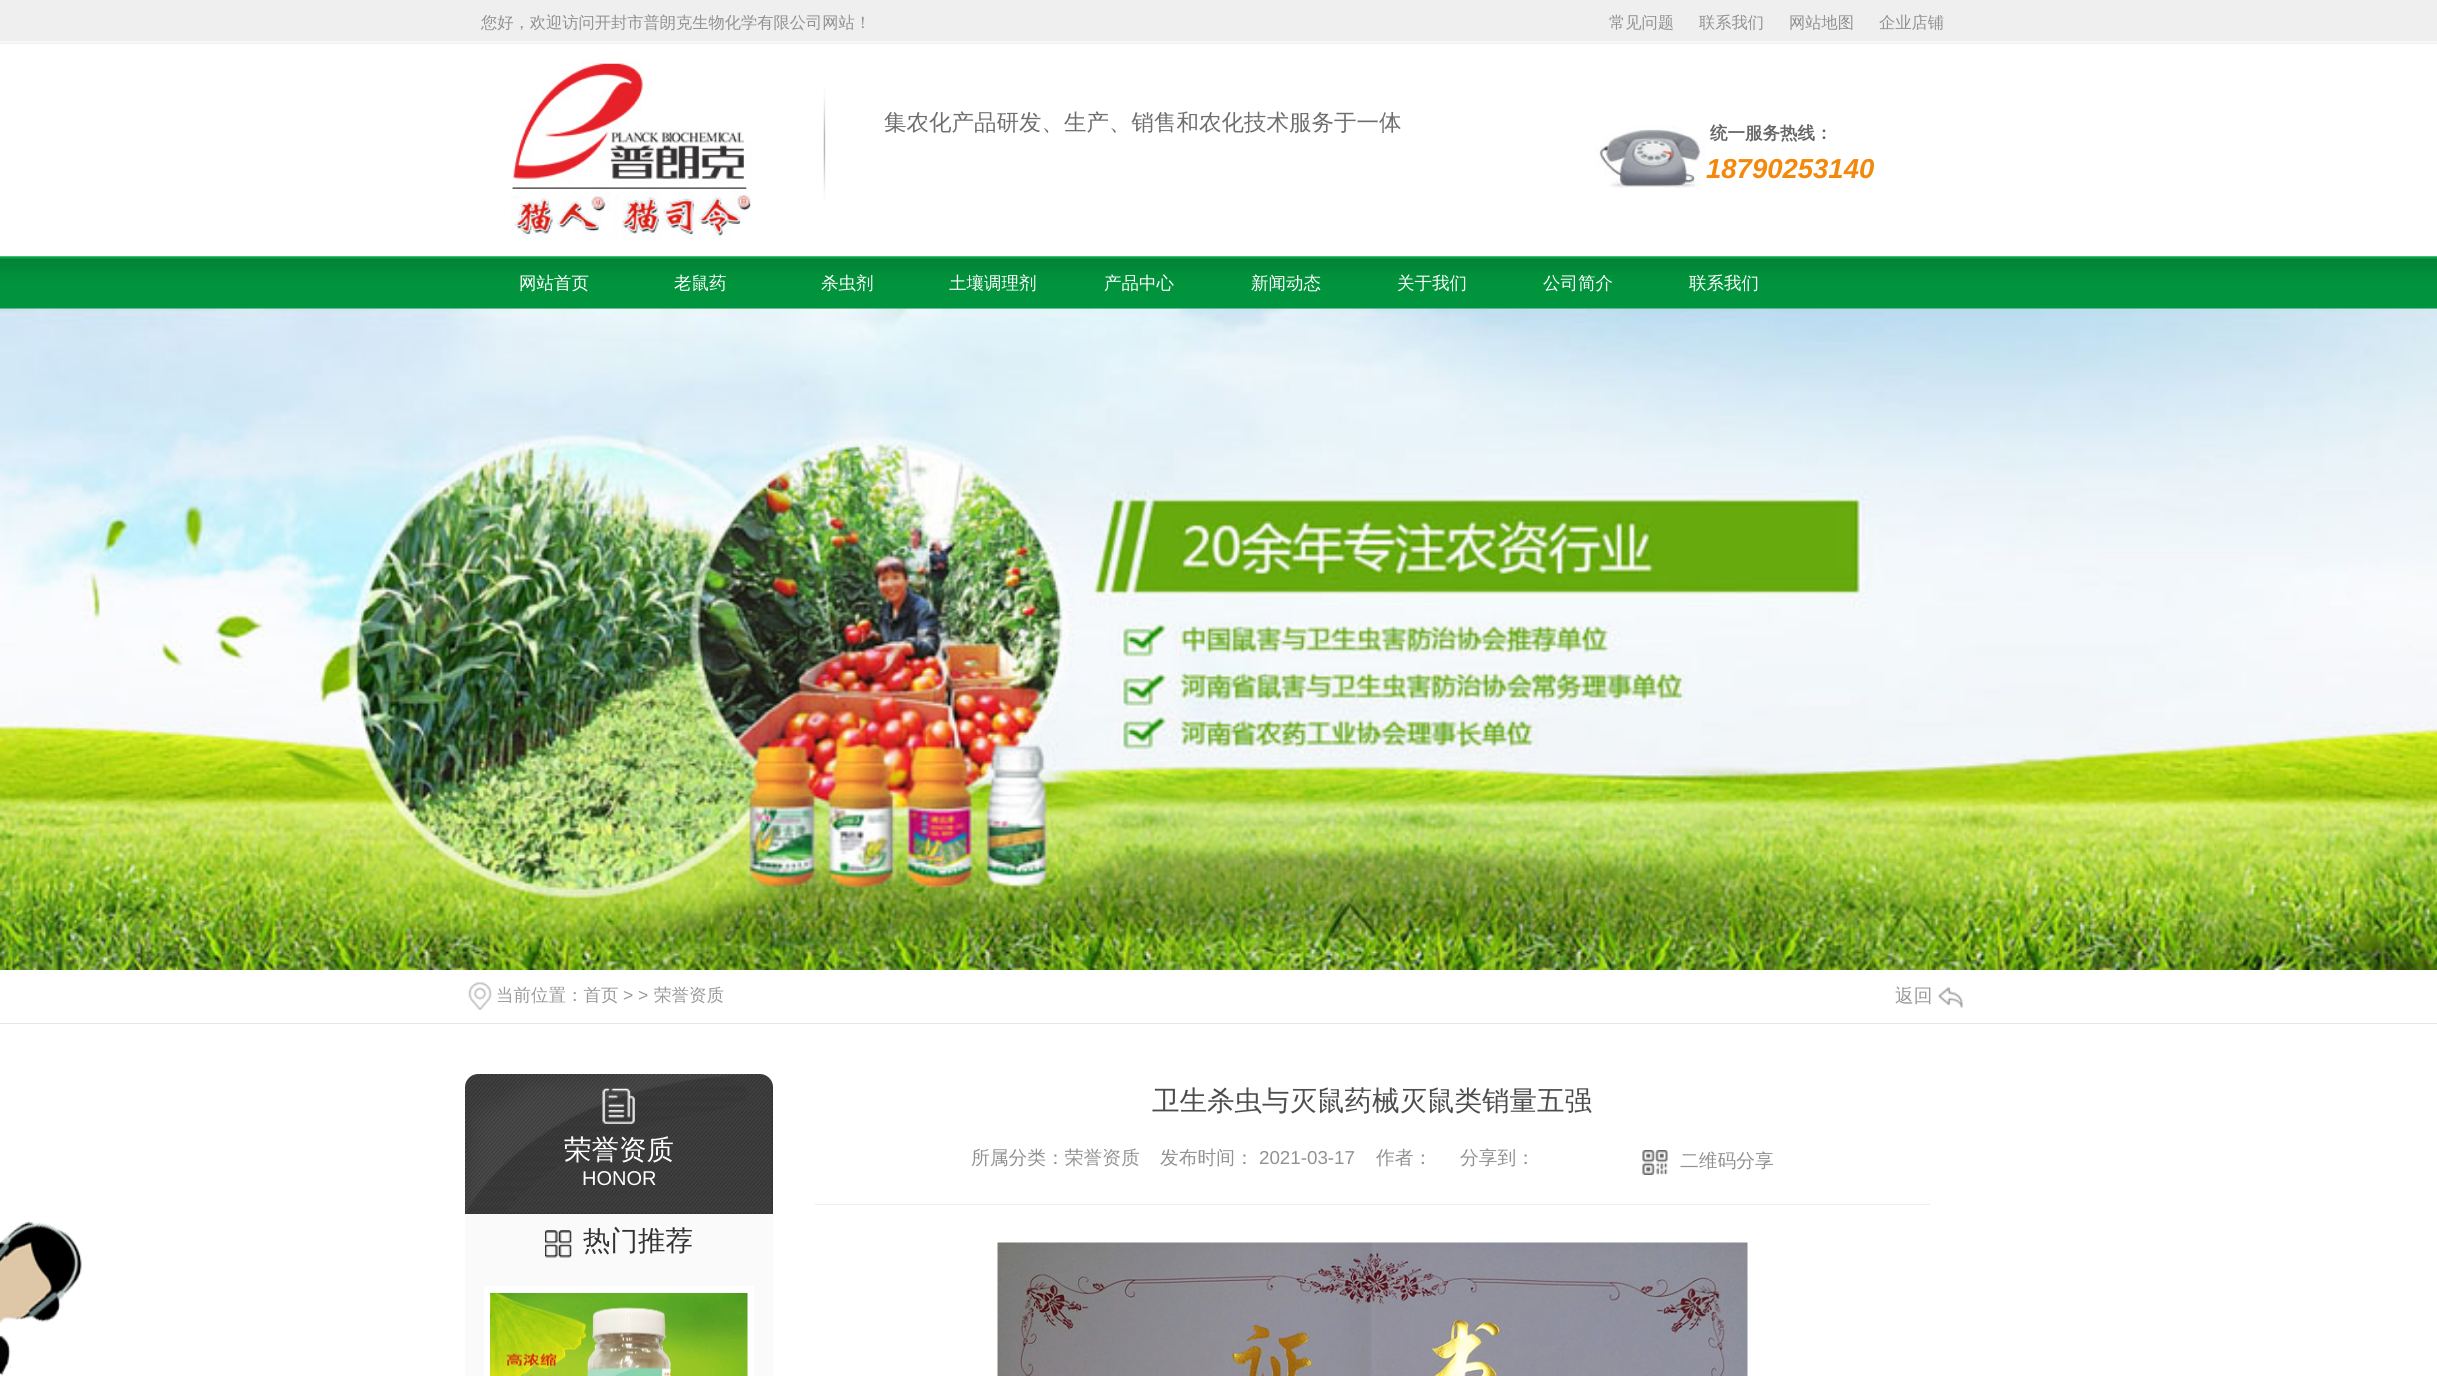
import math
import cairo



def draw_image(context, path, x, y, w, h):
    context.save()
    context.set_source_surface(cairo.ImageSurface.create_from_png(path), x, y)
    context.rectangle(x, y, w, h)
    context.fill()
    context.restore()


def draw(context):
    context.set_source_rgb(1, 1, 1)
    context.paint()
    draw_image(context, "images/1.png", 0, 0, 2437, 44)
    draw_image(context, "images/2.png", 511, 60, 241, 180)
    draw_image(context, "images/3.png", 823, 89, 3, 111)
    draw_image(context, "images/4.png", 1595, 125, 110, 63)
    draw_image(context, "images/5.png", 0, 256, 2437, 53)
    draw_image(context, "images/6.png", 0, 308, 2437, 662)
    context.set_source_rgb(230 / 255, 230 / 255, 230 / 255)
    context.rectangle(0, 1023, 2437, 1)
    context.fill()
    draw_image(context, "images/7.png", 468, 982, 24, 28)
    draw_image(context, "images/8.png", 1938, 987, 25, 21)
    context.set_source_rgb(51 / 255, 51 / 255, 51 / 255)
    context.new_path()
    context.move_to(478, 1074)
    context.line_to(760, 1074)
    context.curve_to(767, 1074, 773, 1080, 773, 1087)
    context.line_to(773, 1214)
    context.line_to(465, 1214)
    context.line_to(465, 1087)
    context.curve_to(465, 1080, 471, 1074, 478, 1074)
    context.close_path()
    context.fill()
    draw_image(context, "images/9.png", 465, 1074, 307, 140)
    draw_image(context, "images/10.png", 602, 1088, 33, 36)
    context.set_source_rgb(250 / 255, 250 / 255, 250 / 255)
    context.rectangle(465, 1214, 308, 162)
    context.fill()
    draw_image(context, "images/11.png", 545, 1230, 27, 28)
    context.rectangle(487, 1289, 264, 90)
    context.set_source_rgb(1, 1, 1)
    context.set_line_width(6)
    context.stroke()
    draw_image(context, "images/12.png", 490, 1293, 258, 83)
    draw_image(context, "images/13.png", 1642, 1150, 26, 25)
    context.set_source_rgb(237 / 255, 237 / 255, 237 / 255)
    context.rectangle(815, 1204, 1115, 1)
    context.fill()
    draw_image(context, "images/14.png", 997, 1242, 751, 134)
    draw_image(context, "images/15.png", 0, 1221, 82, 155)
    context.select_font_face("WenQuanYi Zen Hei Medium")
    context.set_font_size(16.25)
    context.set_source_rgb(145 / 255, 145 / 255, 145 / 255)
    context.move_to(481, 28)
    context.show_text("您好，欢迎访问开封市普朗克生物化学有限公司网站！")
    context.move_to(1609, 28)
    context.show_text("常见问题")
    context.move_to(1699, 28)
    context.show_text("联系我们")
    context.move_to(1789, 28)
    context.show_text("网站地图")
    context.move_to(1879, 28)
    context.show_text("企业店铺")
    context.set_font_size(22.5)
    context.set_source_rgb(110 / 255, 110 / 255, 110 / 255)
    context.move_to(884, 130)
    context.show_text("集农化产品研发、生产、销售和农化技术服务于一体")
    context.select_font_face("WenQuanYi Zen Hei", cairo.FontSlant.NORMAL, cairo.FontWeight.BOLD)
    context.set_font_size(17.5)
    context.set_source_rgb(102 / 255, 102 / 255, 102 / 255)
    context.move_to(1710, 139)
    context.show_text("统一服务热线：")
    context.select_font_face("Liberation Sans", cairo.FontSlant.ITALIC, cairo.FontWeight.BOLD)
    context.set_font_size(27.5)
    context.set_source_rgb(242 / 255, 137 / 255, 12 / 255)
    context.move_to(1706, 178)
    context.show_text("18790253140")
    context.select_font_face("WenQuanYi Zen Hei Medium")
    context.set_font_size(17.5)
    context.set_source_rgb(1, 1, 1)
    context.move_to(519, 289)
    context.show_text("网站首页")
    context.move_to(674, 289)
    context.show_text("老鼠药")
    context.move_to(821, 289)
    context.show_text("杀虫剂")
    context.move_to(949, 289)
    context.show_text("土壤调理剂")
    context.move_to(1104, 289)
    context.show_text("产品中心")
    context.move_to(1251, 289)
    context.show_text("新闻动态")
    context.move_to(1397, 289)
    context.show_text("关于我们")
    context.move_to(1543, 289)
    context.show_text("公司简介")
    context.move_to(1689, 289)
    context.show_text("联系我们")
    context.set_source_rgb(153 / 255, 153 / 255, 153 / 255)
    context.move_to(496, 1001)
    context.show_text("当前位置：首页")
    context.select_font_face("Liberation Sans")
    context.move_to(623, 1001)
    context.show_text("> >")
    context.select_font_face("WenQuanYi Zen Hei Medium")
    context.move_to(654, 1001)
    context.show_text("荣誉资质")
    context.set_font_size(18.75)
    context.move_to(1895, 1002)
    context.show_text("返回")
    context.set_font_size(27.5)
    context.set_source_rgb(1, 1, 1)
    context.move_to(564, 1159)
    context.show_text("荣誉资质")
    context.select_font_face("Liberation Sans")
    context.set_font_size(20)
    context.move_to(582, 1185)
    context.show_text("HONOR")
    context.select_font_face("WenQuanYi Zen Hei Medium")
    context.set_font_size(27.5)
    context.set_source_rgb(51 / 255, 51 / 255, 51 / 255)
    context.move_to(583, 1250)
    context.show_text("热门推荐")
    context.set_source_rgb(76 / 255, 76 / 255, 76 / 255)
    context.move_to(1152, 1110)
    context.show_text("卫生杀虫与灭鼠药械灭鼠类销量五强")
    context.set_font_size(18.75)
    context.set_source_rgb(145 / 255, 145 / 255, 145 / 255)
    context.move_to(971, 1164)
    context.show_text("所属分类：荣誉资质")
    context.move_to(1160, 1164)
    context.show_text("发布时间：")
    context.select_font_face("Liberation Sans")
    context.move_to(1259, 1164)
    context.show_text("2021-03-17")
    context.select_font_face("WenQuanYi Zen Hei Medium")
    context.move_to(1376, 1164)
    context.show_text("作者：")
    context.move_to(1460, 1164)
    context.show_text("分享到：")
    context.move_to(1680, 1167)
    context.show_text("二维码分享")


surface = cairo.ImageSurface(cairo.Format.RGB24, 2437, 1376)
context = cairo.Context(surface)
options = cairo.FontOptions()
options.set_hint_metrics(cairo.HintMetrics.OFF)
options.set_hint_style(cairo.HintStyle.NONE)
context.set_font_options(options)
context.set_miter_limit(4)
draw(context)
surface.write_to_png("out.png")
